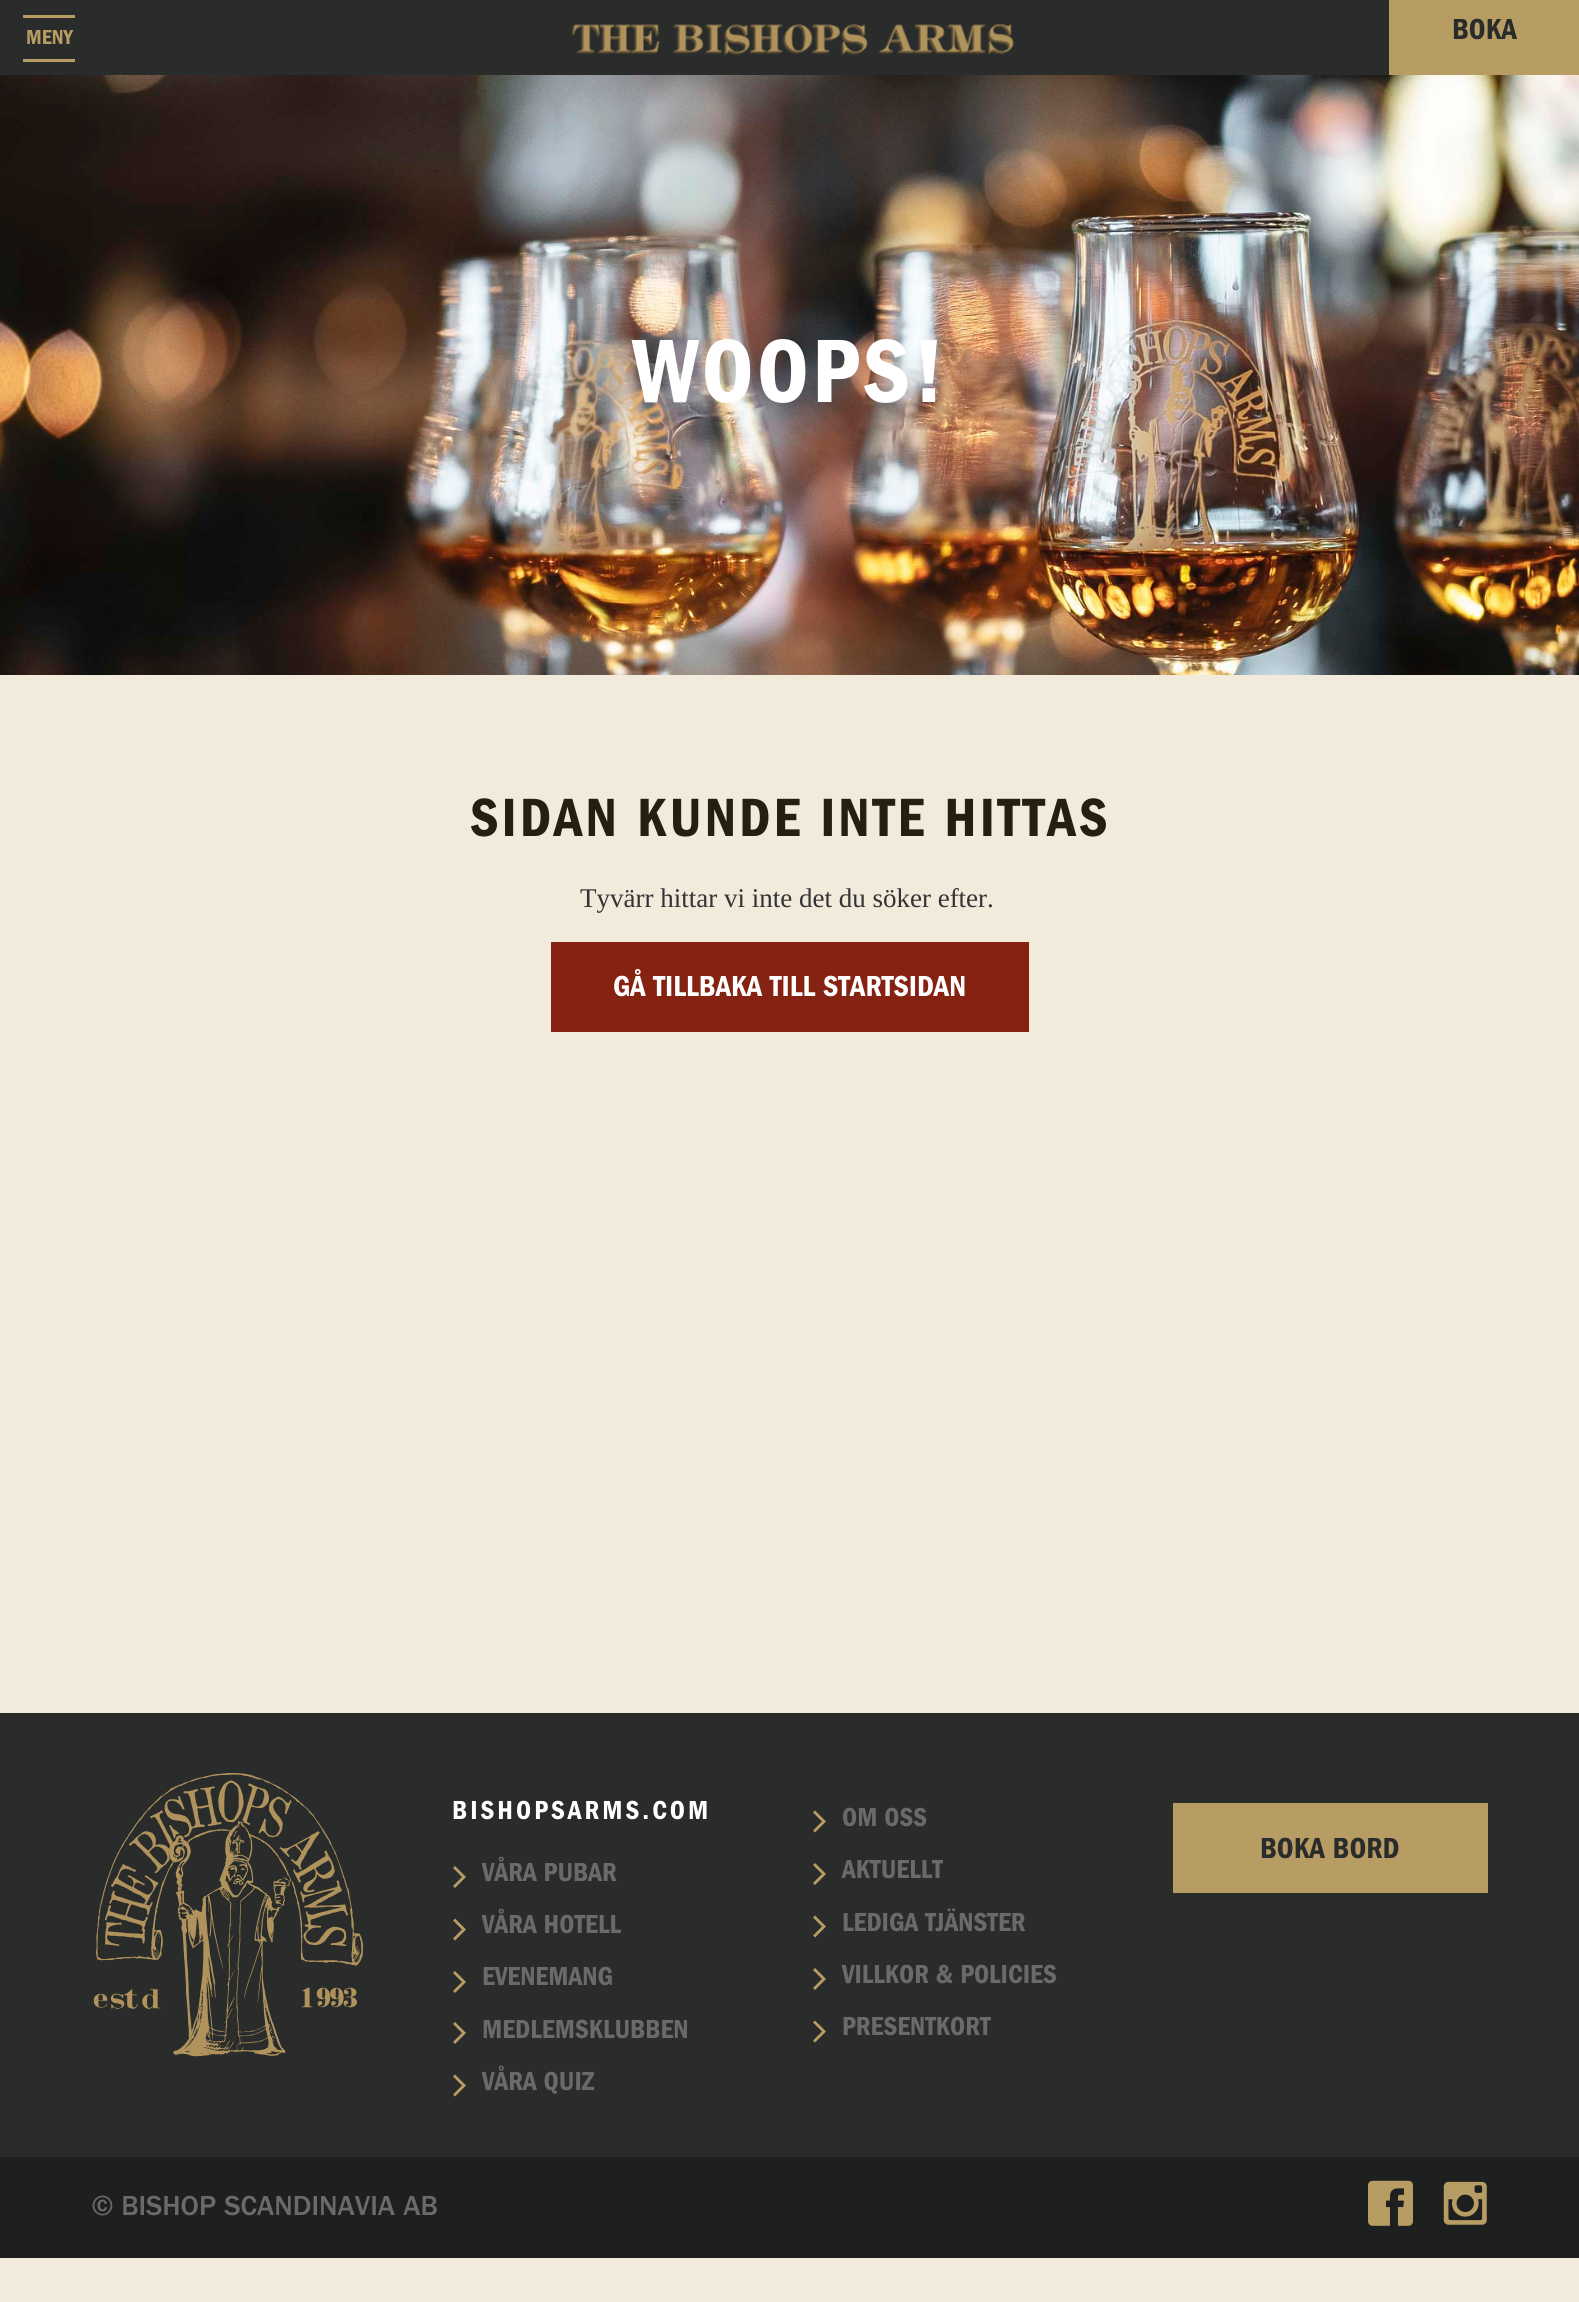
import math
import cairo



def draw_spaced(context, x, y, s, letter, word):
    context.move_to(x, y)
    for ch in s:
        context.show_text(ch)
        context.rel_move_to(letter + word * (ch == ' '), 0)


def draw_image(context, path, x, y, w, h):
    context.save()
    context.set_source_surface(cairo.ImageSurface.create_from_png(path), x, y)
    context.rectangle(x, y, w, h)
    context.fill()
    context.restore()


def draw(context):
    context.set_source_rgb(242 / 255, 234 / 255, 219 / 255)
    context.paint()
    context.set_source_rgb(42 / 255, 44 / 255, 43 / 255)
    context.rectangle(0, 0, 1389, 75)
    context.fill()
    context.set_source_rgb(183 / 255, 156 / 255, 99 / 255)
    context.rectangle(23, 15, 52, 3)
    context.fill()
    context.rectangle(23, 59, 52, 3)
    context.fill()
    draw_image(context, "images/1.png", 571, 24, 443, 32)
    context.rectangle(1389, 0, 190, 75)
    context.fill()
    draw_image(context, "images/2.png", 0, 75, 1579, 600)
    context.set_source_rgb(134 / 255, 34 / 255, 18 / 255)
    context.rectangle(551, 942, 478, 90)
    context.fill()
    context.set_source_rgb(42 / 255, 44 / 255, 43 / 255)
    context.rectangle(0, 1713, 1579, 444)
    context.fill()
    draw_image(context, "images/3.png", 93, 1773, 270, 284)
    context.set_source_rgb(183 / 255, 156 / 255, 99 / 255)
    context.new_path()
    context.move_to(453, 1886)
    context.line_to(462, 1877)
    context.line_to(453, 1868)
    context.line_to(455, 1866)
    context.line_to(466, 1877)
    context.line_to(455, 1888)
    context.close_path()
    context.fill()
    context.new_path()
    context.move_to(453, 1938.5)
    context.line_to(462, 1929.5)
    context.line_to(453, 1920.5)
    context.line_to(455, 1918.5)
    context.line_to(466, 1929.5)
    context.line_to(455, 1940.5)
    context.close_path()
    context.fill()
    context.new_path()
    context.move_to(453, 1991)
    context.line_to(462, 1982)
    context.line_to(453, 1973)
    context.line_to(455, 1971)
    context.line_to(466, 1982)
    context.line_to(455, 1993)
    context.close_path()
    context.fill()
    context.new_path()
    context.move_to(453, 2042)
    context.line_to(462, 2033)
    context.line_to(453, 2024)
    context.line_to(455, 2022)
    context.line_to(466, 2033)
    context.line_to(455, 2044)
    context.close_path()
    context.fill()
    context.new_path()
    context.move_to(453, 2094.5)
    context.line_to(462, 2085.5)
    context.line_to(453, 2076.5)
    context.line_to(455, 2074.5)
    context.line_to(466, 2085.5)
    context.line_to(455, 2096.5)
    context.close_path()
    context.fill()
    context.new_path()
    context.move_to(813, 1830.5)
    context.line_to(822, 1821.5)
    context.line_to(813, 1812.5)
    context.line_to(815, 1810.5)
    context.line_to(826, 1821.5)
    context.line_to(815, 1832.5)
    context.close_path()
    context.fill()
    context.new_path()
    context.move_to(813, 1883)
    context.line_to(822, 1874)
    context.line_to(813, 1865)
    context.line_to(815, 1863)
    context.line_to(826, 1874)
    context.line_to(815, 1885)
    context.close_path()
    context.fill()
    context.new_path()
    context.move_to(813, 1935.5)
    context.line_to(822, 1926.5)
    context.line_to(813, 1917.5)
    context.line_to(815, 1915.5)
    context.line_to(826, 1926.5)
    context.line_to(815, 1937.5)
    context.close_path()
    context.fill()
    context.new_path()
    context.move_to(813, 1988)
    context.line_to(822, 1979)
    context.line_to(813, 1970)
    context.line_to(815, 1968)
    context.line_to(826, 1979)
    context.line_to(815, 1990)
    context.close_path()
    context.fill()
    context.new_path()
    context.move_to(813, 2040.5)
    context.line_to(822, 2031.5)
    context.line_to(813, 2022.5)
    context.line_to(815, 2020.5)
    context.line_to(826, 2031.5)
    context.line_to(815, 2042.5)
    context.close_path()
    context.fill()
    context.rectangle(1173, 1803, 315, 90)
    context.fill()
    context.set_source_rgb(30 / 255, 32 / 255, 31 / 255)
    context.rectangle(0, 2157, 1579, 101)
    context.fill()
    draw_image(context, "images/4.png", 1368, 2180, 45, 46)
    draw_image(context, "images/5.png", 1443, 2181, 44, 44)
    context.select_font_face("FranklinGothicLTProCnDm")
    context.set_font_size(21)
    context.set_source_rgb(183 / 255, 156 / 255, 99 / 255)
    context.move_to(26, 44)
    context.show_text("MENY")
    context.set_font_size(30)
    context.set_source_rgb(42 / 255, 44 / 255, 43 / 255)
    context.move_to(1452, 39)
    context.show_text("BOKA")
    context.set_font_size(93)
    context.set_source_rgb(1, 1, 1)
    draw_spaced(context, 632, 402, "WOOPS!", 3, 0)
    context.set_font_size(55.75)
    context.set_source_rgb(37 / 255, 31 / 255, 17 / 255)
    draw_spaced(context, 470, 836, "SIDAN KUNDE INTE HITTAS", 3, 0)
    context.select_font_face("Liberation Serif")
    context.set_font_size(27)
    context.set_source_rgb(51 / 255, 51 / 255, 51 / 255)
    context.move_to(580, 907)
    context.show_text("Tyvärr hittar vi inte det du söker efter.")
    context.select_font_face("FranklinGothicLTProCnDm")
    context.set_font_size(30)
    context.set_source_rgb(1, 1, 1)
    context.move_to(613, 996)
    context.show_text("GÅ TILLBAKA TILL STARTSIDAN")
    context.set_font_size(27)
    draw_spaced(context, 452, 1819, "BISHOPSARMS.COM", 3, 0)
    context.set_source_rgb(106 / 255, 106 / 255, 106 / 255)
    context.move_to(482, 1881)
    context.show_text("VÅRA PUBAR")
    context.move_to(482, 1933)
    context.show_text("VÅRA HOTELL")
    context.move_to(482, 1985)
    context.show_text("EVENEMANG")
    context.move_to(482, 2038)
    context.show_text("MEDLEMSKLUBBEN")
    context.move_to(482, 2090)
    context.show_text("VÅRA QUIZ")
    context.move_to(842, 1826)
    context.show_text("OM OSS")
    context.move_to(842, 1878)
    context.show_text("AKTUELLT")
    context.move_to(842, 1931)
    context.show_text("LEDIGA TJÄNSTER")
    context.move_to(842, 1983)
    context.show_text("VILLKOR & POLICIES")
    context.move_to(842, 2035)
    context.show_text("PRESENTKORT")
    context.set_font_size(30)
    context.set_source_rgb(42 / 255, 44 / 255, 43 / 255)
    context.move_to(1260, 1858)
    context.show_text("BOKA BORD")
    context.select_font_face("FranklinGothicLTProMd")
    context.set_font_size(28.5)
    context.set_source_rgb(106 / 255, 106 / 255, 106 / 255)
    context.move_to(92, 2215)
    context.show_text("© BISHOP SCANDINAVIA AB")


surface = cairo.ImageSurface(cairo.Format.RGB24, 1579, 2302)
context = cairo.Context(surface)
options = cairo.FontOptions()
options.set_hint_metrics(cairo.HintMetrics.OFF)
options.set_hint_style(cairo.HintStyle.NONE)
context.set_font_options(options)
context.set_miter_limit(4)
draw(context)
surface.write_to_png("out.png")
